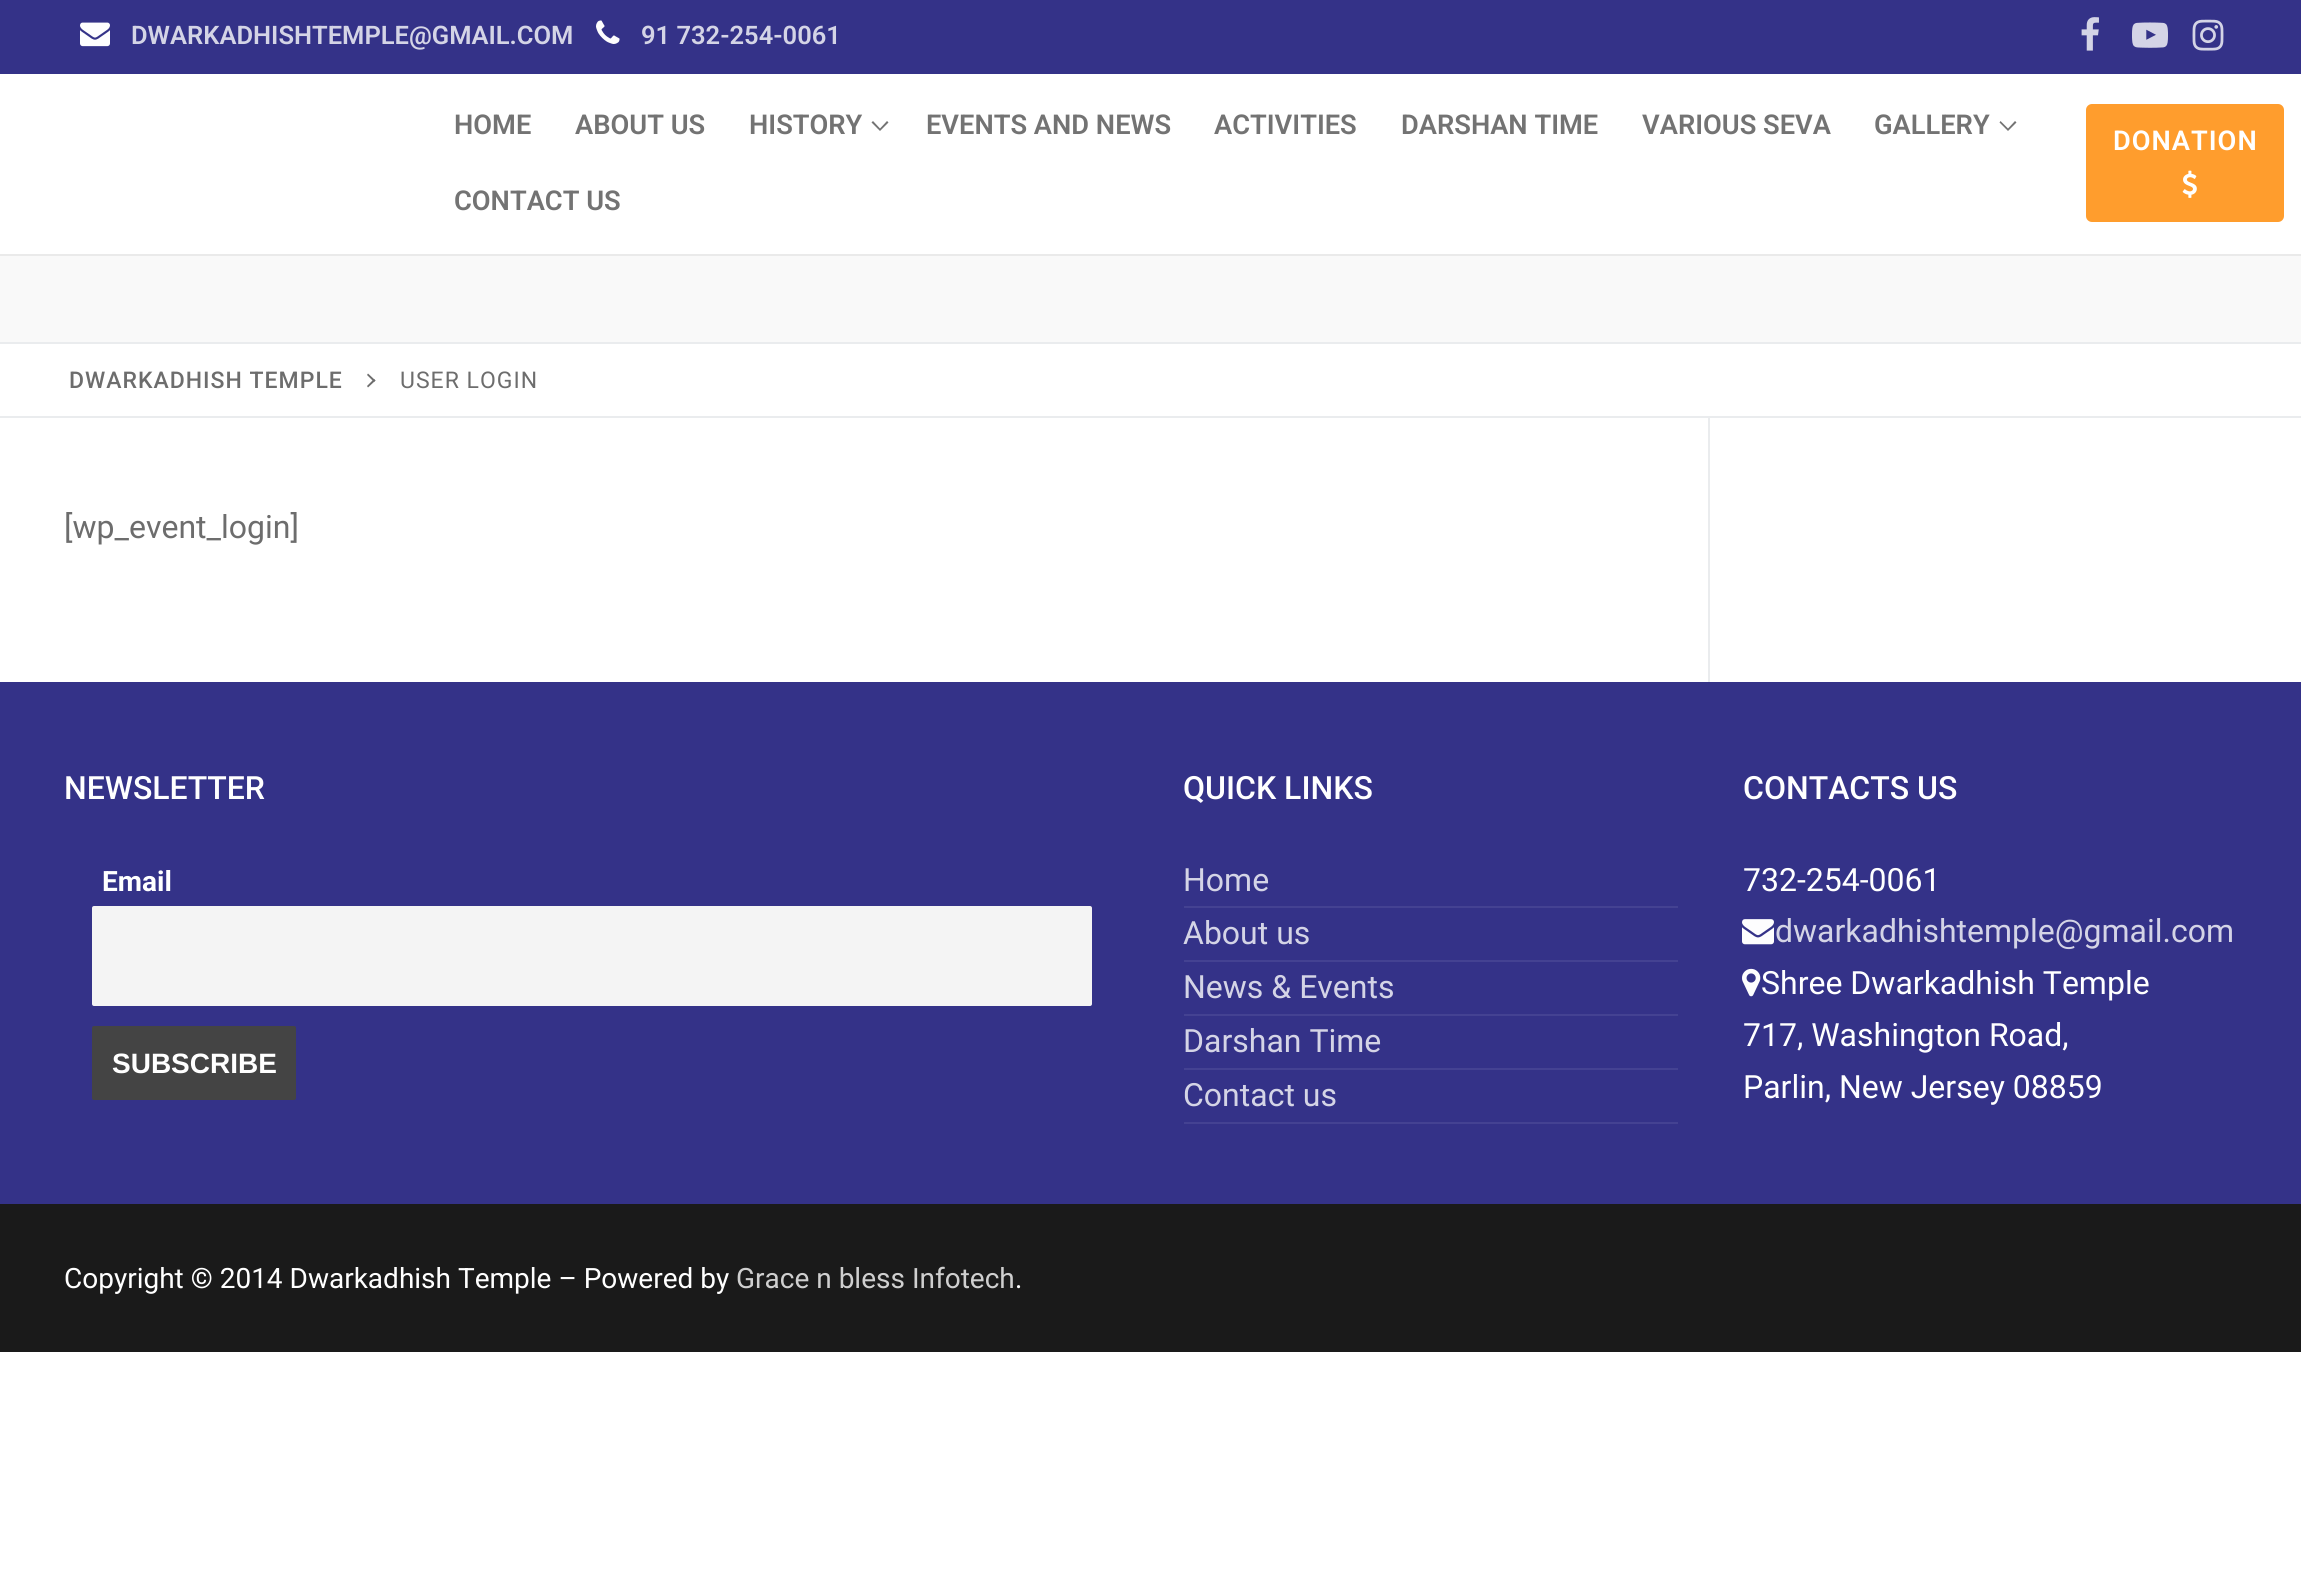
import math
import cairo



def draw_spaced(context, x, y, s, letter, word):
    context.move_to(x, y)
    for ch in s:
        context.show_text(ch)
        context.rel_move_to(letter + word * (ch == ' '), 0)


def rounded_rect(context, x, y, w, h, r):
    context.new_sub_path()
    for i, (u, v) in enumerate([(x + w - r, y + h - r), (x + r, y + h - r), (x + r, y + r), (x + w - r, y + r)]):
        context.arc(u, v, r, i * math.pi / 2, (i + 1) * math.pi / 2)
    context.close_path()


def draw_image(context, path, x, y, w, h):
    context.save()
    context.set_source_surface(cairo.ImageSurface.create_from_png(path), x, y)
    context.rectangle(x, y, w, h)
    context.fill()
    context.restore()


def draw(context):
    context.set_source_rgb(1, 1, 1)
    context.paint()
    context.set_source_rgb(52 / 255, 50 / 255, 136 / 255)
    context.rectangle(0, 0, 2301, 74)
    context.fill()
    draw_image(context, "images/1.png", 80, 22, 30, 25)
    draw_image(context, "images/2.png", 596, 20, 24, 24)
    draw_image(context, "images/3.png", 2081, 17, 18, 34)
    draw_image(context, "images/4.png", 2132, 22, 36, 26)
    draw_image(context, "images/5.png", 2192, 19, 32, 32)
    context.set_source_rgb(234 / 255, 234 / 255, 234 / 255)
    context.rectangle(0, 254, 2301, 2)
    context.fill()
    context.set_source_rgb(115 / 255, 115 / 255, 115 / 255)
    context.new_path()
    context.move_to(880, 131)
    context.line_to(871.5, 122.5)
    context.line_to(873, 121)
    context.line_to(880, 128.5)
    context.close_path()
    context.move_to(888.5, 122.5)
    context.line_to(880, 131)
    context.line_to(880, 128.5)
    context.line_to(887, 121)
    context.close_path()
    context.fill()
    context.new_path()
    context.move_to(2008, 131)
    context.line_to(1999.5, 122.5)
    context.line_to(2000.5, 121)
    context.line_to(2008, 128.5)
    context.close_path()
    context.move_to(2016.5, 122.5)
    context.line_to(2008, 131)
    context.line_to(2008, 128.5)
    context.line_to(2015, 121)
    context.close_path()
    context.fill()
    context.set_source_rgb(1, 157 / 255, 45 / 255)
    rounded_rect(context, 2086, 104, 198, 118, 6)
    context.fill()
    draw_image(context, "images/6.png", 2182, 170, 15, 28)
    context.set_source_rgb(249 / 255, 249 / 255, 249 / 255)
    context.rectangle(0, 256, 2301, 86)
    context.fill()
    context.set_source_rgb(234 / 255, 236 / 255, 238 / 255)
    context.rectangle(0, 342, 2301, 2)
    context.fill()
    context.rectangle(0, 416, 2301, 2)
    context.fill()
    context.set_source_rgb(109 / 255, 109 / 255, 109 / 255)
    context.new_path()
    context.move_to(375.5, 380.5)
    context.line_to(368, 387.5)
    context.line_to(367, 386)
    context.line_to(374, 379)
    context.close_path()
    context.fill()
    context.new_path()
    context.move_to(375.5, 380.5)
    context.line_to(374, 382)
    context.line_to(367, 375)
    context.line_to(368, 373.5)
    context.close_path()
    context.fill()
    context.set_source_rgb(234 / 255, 236 / 255, 238 / 255)
    context.rectangle(1708, 418, 2, 264)
    context.fill()
    context.set_source_rgb(52 / 255, 50 / 255, 136 / 255)
    context.rectangle(0, 682, 2301, 522)
    context.fill()
    context.set_source_rgb(244 / 255, 244 / 255, 244 / 255)
    rounded_rect(context, 92, 906, 1000, 100, 2)
    context.fill()
    context.set_source_rgb(68 / 255, 68 / 255, 68 / 255)
    rounded_rect(context, 92, 1026, 204, 74, 2)
    context.fill()
    context.set_source_rgb(68 / 255, 66 / 255, 146 / 255)
    context.rectangle(1184, 906, 494, 2)
    context.fill()
    context.rectangle(1184, 960, 494, 2)
    context.fill()
    context.rectangle(1184, 1014, 494, 2)
    context.fill()
    context.rectangle(1184, 1068, 494, 2)
    context.fill()
    context.rectangle(1184, 1122, 494, 2)
    context.fill()
    draw_image(context, "images/7.png", 1742, 919, 32, 26)
    draw_image(context, "images/8.png", 1742, 968, 19, 29)
    context.set_source_rgb(26 / 255, 26 / 255, 26 / 255)
    context.rectangle(0, 1204, 2301, 148)
    context.fill()
    context.select_font_face("Roboto SemiBold")
    context.set_font_size(25.5)
    context.set_source_rgb(212 / 255, 212 / 255, 230 / 255)
    context.move_to(131, 44)
    context.show_text("DWARKADHISHTEMPLE@GMAIL.COM")
    context.move_to(641, 44)
    context.show_text("91 732-254-0061")
    context.set_font_size(27.25)
    context.set_source_rgb(115 / 255, 115 / 255, 115 / 255)
    context.move_to(454, 134)
    context.show_text("HOME")
    context.move_to(575, 134)
    context.show_text("ABOUT US")
    context.move_to(749, 134)
    context.show_text("HISTORY")
    context.move_to(926, 134)
    context.show_text("EVENTS AND NEWS")
    context.move_to(1214, 134)
    context.show_text("ACTIVITIES")
    context.move_to(1401, 134)
    context.show_text("DARSHAN TIME")
    context.move_to(1642, 134)
    context.show_text("VARIOUS SEVA")
    context.move_to(1874, 134)
    context.show_text("GALLERY")
    context.move_to(454, 210)
    context.show_text("CONTACT US")
    context.set_source_rgb(1, 1, 1)
    draw_spaced(context, 2113, 150, "DONATION", 1, 0)
    context.select_font_face("Roboto Medium")
    context.set_font_size(23)
    context.set_source_rgb(109 / 255, 109 / 255, 109 / 255)
    draw_spaced(context, 69, 388, "DWARKADHISH TEMPLE", 1, 0)
    context.select_font_face("Roboto")
    draw_spaced(context, 400, 388, "USER LOGIN", 1, 0)
    context.set_font_size(32)
    context.move_to(64, 538)
    context.show_text("[wp_event_login]")
    context.select_font_face("Roboto Medium")
    context.set_source_rgb(1, 1, 1)
    context.move_to(64, 799)
    context.show_text("NEWSLETTER")
    context.select_font_face("Roboto", cairo.FontSlant.NORMAL, cairo.FontWeight.BOLD)
    context.set_font_size(28)
    context.move_to(102, 891)
    context.show_text("Email")
    context.select_font_face("Liberation Sans", cairo.FontSlant.NORMAL, cairo.FontWeight.BOLD)
    context.move_to(112, 1073)
    context.show_text("SUBSCRIBE")
    context.select_font_face("Roboto Medium")
    context.set_font_size(32)
    context.move_to(1183, 799)
    context.show_text("QUICK LINKS")
    context.select_font_face("Roboto")
    context.set_source_rgb(212 / 255, 212 / 255, 230 / 255)
    context.move_to(1183, 891)
    context.show_text("Home")
    context.move_to(1183, 944)
    context.show_text("About us")
    context.move_to(1183, 998)
    context.show_text("News & Events")
    context.move_to(1183, 1052)
    context.show_text("Darshan Time")
    context.move_to(1183, 1106)
    context.show_text("Contact us")
    context.select_font_face("Roboto Medium")
    context.set_source_rgb(1, 1, 1)
    context.move_to(1743, 799)
    context.show_text("CONTACTS US")
    context.select_font_face("Roboto")
    context.move_to(1743, 891)
    context.show_text("732-254-0061")
    context.set_source_rgb(212 / 255, 212 / 255, 230 / 255)
    context.move_to(1775, 942)
    context.show_text("dwarkadhishtemple@gmail.com")
    context.set_source_rgb(1, 1, 1)
    context.move_to(1761, 994)
    context.show_text("Shree Dwarkadhish Temple")
    context.move_to(1743, 1046)
    context.show_text("717, Washington Road,")
    context.move_to(1743, 1098)
    context.show_text("Parlin, New Jersey 08859")
    context.set_font_size(28)
    context.move_to(64, 1288)
    context.show_text("Copyright © 2014 Dwarkadhish Temple – Powered by")
    context.set_source_rgb(207 / 255, 207 / 255, 207 / 255)
    context.move_to(736, 1288)
    context.show_text("Grace n bless Infotech")
    context.set_source_rgb(1, 1, 1)
    context.move_to(1015, 1288)
    context.show_text(".")


surface = cairo.ImageSurface(cairo.Format.RGB24, 2301, 1578)
context = cairo.Context(surface)
options = cairo.FontOptions()
options.set_hint_metrics(cairo.HintMetrics.OFF)
options.set_hint_style(cairo.HintStyle.NONE)
context.set_font_options(options)
context.set_miter_limit(4)
draw(context)
surface.write_to_png("out.png")
